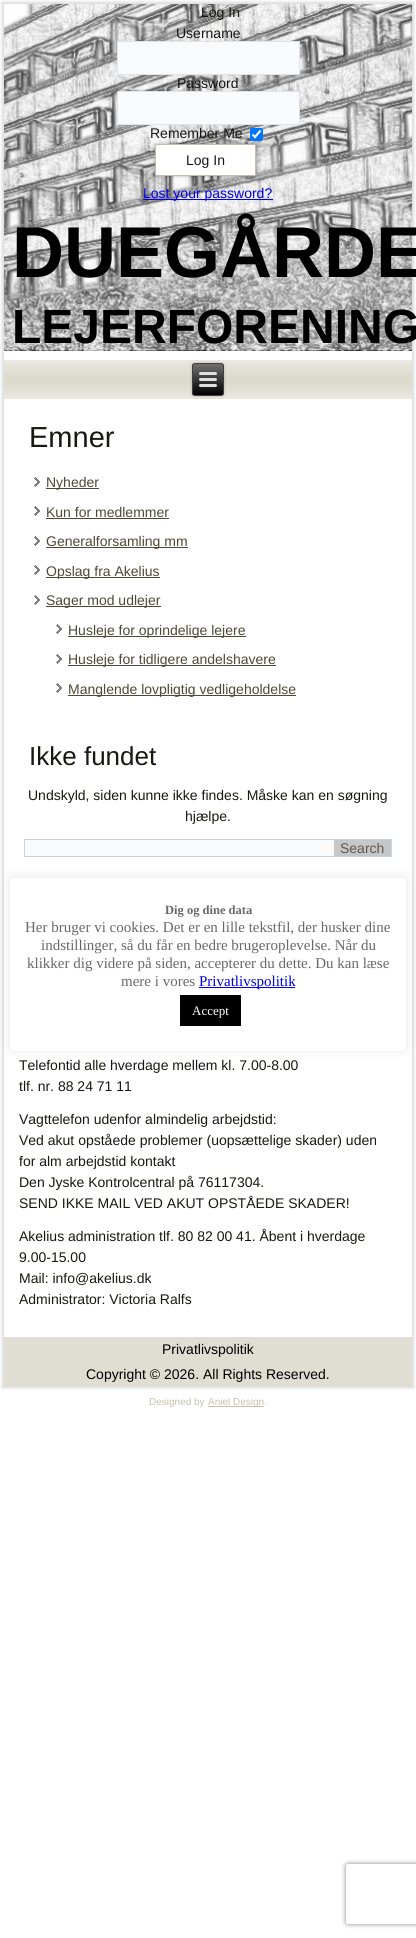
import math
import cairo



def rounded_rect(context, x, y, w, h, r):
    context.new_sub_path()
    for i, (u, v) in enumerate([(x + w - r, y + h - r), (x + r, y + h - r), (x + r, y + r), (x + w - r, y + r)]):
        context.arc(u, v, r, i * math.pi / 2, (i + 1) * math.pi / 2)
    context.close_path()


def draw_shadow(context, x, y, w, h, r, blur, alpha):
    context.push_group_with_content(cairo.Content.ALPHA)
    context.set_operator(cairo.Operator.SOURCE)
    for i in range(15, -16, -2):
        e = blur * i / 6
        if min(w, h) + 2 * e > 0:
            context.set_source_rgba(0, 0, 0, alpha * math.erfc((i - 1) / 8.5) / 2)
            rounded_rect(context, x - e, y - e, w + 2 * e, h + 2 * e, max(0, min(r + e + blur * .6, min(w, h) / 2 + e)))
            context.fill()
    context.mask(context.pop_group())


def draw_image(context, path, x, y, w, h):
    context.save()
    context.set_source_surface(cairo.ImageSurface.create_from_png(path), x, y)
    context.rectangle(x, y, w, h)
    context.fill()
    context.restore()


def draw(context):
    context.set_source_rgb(1, 1, 1)
    context.paint()
    context.save()
    context.set_fill_rule(cairo.FillRule.EVEN_ODD)
    context.new_path()
    context.move_to(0, 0)
    context.line_to(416, 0)
    context.line_to(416, 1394)
    context.line_to(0, 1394)
    context.close_path()
    context.move_to(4, 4)
    context.line_to(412, 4)
    context.line_to(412, 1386)
    context.line_to(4, 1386)
    context.close_path()
    context.clip()
    context.set_source_rgb(0, 0, 0)
    draw_shadow(context, 2, 2, 412, 1386, 0, 1.5, 0.15)
    context.restore()
    draw_image(context, "images/1.png", 4, 4, 408, 347)
    context.set_source_rgb(249 / 255, 250 / 255, 251 / 255)
    context.rectangle(117.5, 41.5, 182, 33)
    context.fill_preserve()
    context.set_source_rgb(225 / 255, 227 / 255, 231 / 255)
    context.set_line_width(1)
    context.stroke()
    context.set_source_rgb(249 / 255, 250 / 255, 251 / 255)
    context.rectangle(117.5, 91.5, 182, 33)
    context.fill_preserve()
    context.set_source_rgb(225 / 255, 227 / 255, 231 / 255)
    context.stroke()
    context.set_source_rgb(0, 117 / 255, 1)
    rounded_rect(context, 250, 128, 13, 13, 2)
    context.fill()
    context.new_path()
    context.move_to(252.5, 134.5)
    context.line_to(255, 137)
    context.line_to(260.5, 130.5)
    context.set_source_rgb(1, 1, 1)
    context.set_line_width(2.1)
    context.stroke()
    context.set_source_rgb(0, 0, 0)
    draw_shadow(context, 154, 143, 103, 34, 3, 1, 0.15)
    context.set_source_rgb(1, 1, 1)
    rounded_rect(context, 155.5, 144.5, 100, 31, 1.5)
    context.fill_preserve()
    context.set_source_rgb(194 / 255, 189 / 255, 168 / 255)
    context.set_line_width(1)
    context.stroke()
    context.set_source_rgb(0, 0, 238 / 255)
    context.rectangle(143, 199, 130, 1)
    context.fill()
    gradient = cairo.LinearGradient(208, 360, 208, 399)
    gradient.add_color_stop_rgba(0, 234 / 255, 232 / 255, 225 / 255, 1)
    gradient.add_color_stop_rgba(0.4, 222 / 255, 219 / 255, 207 / 255, 1)
    gradient.add_color_stop_rgba(0.5, 219 / 255, 216 / 255, 204 / 255, 1)
    gradient.add_color_stop_rgba(0.6, 222 / 255, 219 / 255, 207 / 255, 1)
    gradient.add_color_stop_rgba(1, 234 / 255, 232 / 255, 225 / 255, 1)
    context.set_source(gradient)
    context.rectangle(4, 360, 408, 39)
    context.fill()
    context.set_source_rgb(0, 0, 0)
    draw_shadow(context, 192, 363, 32, 33, 3, 1.5, 0.2)
    context.save()
    rounded_rect(context, 192, 363, 32, 33, 3)
    context.clip()
    gradient = cairo.LinearGradient(208, 364, 208, 395)
    gradient.add_color_stop_rgba(0, 112 / 255, 112 / 255, 112 / 255, 1)
    gradient.add_color_stop_rgba(1, 0, 0, 0, 1)
    context.set_source(gradient)
    context.rectangle(192, 364, 32, 31)
    context.fill()
    context.restore()
    rounded_rect(context, 192.5, 363.5, 31, 32, 2.5)
    context.set_source_rgb(64 / 255, 64 / 255, 64 / 255)
    context.stroke()
    context.set_source_rgb(224 / 255, 224 / 255, 224 / 255)
    rounded_rect(context, 199, 372, 18, 3, 1.5)
    context.fill()
    rounded_rect(context, 199, 378, 18, 3, 1.5)
    context.fill()
    rounded_rect(context, 199, 384, 18, 3, 1.5)
    context.fill()
    draw_image(context, "images/2.png", 34, 477, 6, 10)
    context.set_source_rgb(78 / 255, 73 / 255, 54 / 255)
    context.rectangle(46, 488, 53, 1)
    context.fill()
    draw_image(context, "images/2.png", 34, 506, 6, 10)
    context.rectangle(46, 518, 123, 1)
    context.fill()
    draw_image(context, "images/2.png", 34, 536, 6, 10)
    context.rectangle(46, 547, 142, 1)
    context.fill()
    draw_image(context, "images/2.png", 34, 565, 6, 10)
    context.rectangle(46, 577, 114, 1)
    context.fill()
    draw_image(context, "images/2.png", 34, 595, 6, 10)
    context.rectangle(46, 606, 115, 1)
    context.fill()
    draw_image(context, "images/2.png", 56, 624, 6, 10)
    context.rectangle(68, 636, 178, 1)
    context.fill()
    draw_image(context, "images/2.png", 56, 654, 6, 10)
    context.rectangle(68, 665, 208, 1)
    context.fill()
    draw_image(context, "images/2.png", 56, 683, 6, 10)
    context.rectangle(68, 695, 228, 1)
    context.fill()
    context.set_source_rgb(249 / 255, 250 / 255, 251 / 255)
    context.rectangle(25, 840, 309, 16)
    context.fill()
    context.rectangle(24.5, 839.5, 367, 17)
    context.set_source_rgb(204 / 255, 214 / 255, 224 / 255)
    context.stroke()
    context.set_source_rgb(199 / 255, 199 / 255, 199 / 255)
    context.rectangle(334, 840, 57, 16)
    context.fill()
    context.set_source_rgb(224 / 255, 221 / 255, 210 / 255)
    context.rectangle(4, 1337, 408, 49)
    context.fill()
    context.set_source_rgb(199 / 255, 194 / 255, 174 / 255)
    context.rectangle(208, 1406, 56, 1)
    context.fill()
    context.set_source_rgb(172 / 255, 171 / 255, 171 / 255)
    draw_shadow(context, 10, 877, 396, 173, 3, 5, 0.3)
    context.set_source_rgb(1, 1, 1)
    rounded_rect(context, 10, 878, 396, 173, 3)
    context.fill()
    context.set_source_rgb(0, 0, 238 / 255)
    context.rectangle(199, 987, 96, 1)
    context.fill()
    context.set_source_rgb(0, 0, 0)
    context.rectangle(180, 995, 61, 31)
    context.fill()
    context.save()
    context.set_fill_rule(cairo.FillRule.EVEN_ODD)
    context.new_path()
    context.move_to(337, 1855)
    context.line_to(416, 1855)
    context.line_to(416, 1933)
    context.line_to(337, 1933)
    context.close_path()
    context.move_to(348, 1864)
    context.line_to(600, 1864)
    context.curve_to(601, 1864, 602, 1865, 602, 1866)
    context.line_to(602, 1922)
    context.curve_to(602, 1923, 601, 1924, 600, 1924)
    context.line_to(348, 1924)
    context.curve_to(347, 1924, 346, 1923, 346, 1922)
    context.line_to(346, 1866)
    context.curve_to(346, 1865, 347, 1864, 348, 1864)
    context.close_path()
    context.clip()
    context.set_source_rgb(128 / 255, 128 / 255, 128 / 255)
    draw_shadow(context, 346, 1864, 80, 60, 2, 2.5, 1)
    context.restore()
    context.select_font_face("Liberation Sans")
    context.set_font_size(14)
    context.set_source_rgb(24 / 255, 23 / 255, 17 / 255)
    context.move_to(201, 17)
    context.show_text("Log In")
    context.move_to(176, 38)
    context.show_text("Username")
    context.move_to(177, 88)
    context.show_text("Password")
    context.move_to(150, 138)
    context.show_text("Remember Me")
    context.move_to(186, 165)
    context.show_text("Log In")
    context.set_source_rgb(0, 0, 238 / 255)
    context.move_to(143, 198)
    context.show_text("Lost your password?")
    context.select_font_face("Liberation Sans", cairo.FontSlant.NORMAL, cairo.FontWeight.BOLD)
    context.set_font_size(72)
    context.set_source_rgb(0, 0, 0)
    context.move_to(12, 277)
    context.show_text("DUEGÅRDE")
    context.set_font_size(48)
    context.move_to(12, 343)
    context.show_text("LEJERFORENING")
    context.select_font_face("Liberation Sans")
    context.set_font_size(29)
    context.set_source_rgb(24 / 255, 23 / 255, 17 / 255)
    context.move_to(29, 447)
    context.show_text("Emner")
    context.set_font_size(14)
    context.set_source_rgb(78 / 255, 73 / 255, 54 / 255)
    context.move_to(46, 487)
    context.show_text("Nyheder")
    context.move_to(46, 517)
    context.show_text("Kun for medlemmer")
    context.move_to(46, 546)
    context.show_text("Generalforsamling mm")
    context.move_to(46, 576)
    context.show_text("Opslag fra Akelius")
    context.move_to(46, 605)
    context.show_text("Sager mod udlejer")
    context.move_to(68, 635)
    context.show_text("Husleje for oprindelige lejere")
    context.move_to(68, 664)
    context.show_text("Husleje for tidligere andelshavere")
    context.move_to(68, 694)
    context.show_text("Manglende lovpligtig vedligeholdelse")
    context.set_font_size(26)
    context.set_source_rgb(24 / 255, 23 / 255, 17 / 255)
    context.move_to(29, 765)
    context.show_text("Ikke fundet")
    context.set_font_size(14)
    context.move_to(28, 800)
    context.show_text("Undskyld, siden kunne ikke findes. Måske kan en søgning")
    context.move_to(185, 821)
    context.show_text("hjælpe.")
    context.set_source_rgb(89 / 255, 89 / 255, 89 / 255)
    context.move_to(340, 853)
    context.show_text("Search")
    context.set_source_rgb(24 / 255, 23 / 255, 17 / 255)
    context.move_to(19, 1070)
    context.show_text("Telefontid alle hverdage mellem kl. 7.00-8.00")
    context.move_to(19, 1091)
    context.show_text("tlf. nr. 88 24 71 11")
    context.move_to(19, 1124)
    context.show_text("Vagttelefon udenfor almindelig arbejdstid:")
    context.move_to(19, 1145)
    context.show_text("Ved akut opståede problemer (uopsættelige skader) uden")
    context.move_to(19, 1166)
    context.show_text("for alm arbejdstid kontakt")
    context.move_to(19, 1187)
    context.show_text("Den Jyske Kontrolcentral på 76117304.")
    context.move_to(19, 1208)
    context.show_text("SEND IKKE MAIL VED AKUT OPSTÅEDE SKADER!")
    context.move_to(19, 1241)
    context.show_text("Akelius administration tlf. 80 82 00 41. Åbent i hverdage")
    context.move_to(19, 1262)
    context.show_text("9.00-15.00")
    context.move_to(19, 1283)
    context.show_text("Mail: info@akelius.dk")
    context.move_to(19, 1304)
    context.show_text("Administrator: Victoria Ralfs")
    context.set_source_rgb(0, 0, 0)
    context.move_to(162, 1354)
    context.show_text("Privatlivspolitik")
    context.move_to(86, 1379)
    context.show_text("Copyright © 2026. All Rights Reserved.")
    context.set_font_size(10)
    context.set_source_rgb(199 / 255, 194 / 255, 174 / 255)
    context.move_to(149, 1405)
    context.show_text("Designed by")
    context.move_to(208, 1405)
    context.show_text("Aniel Design.")
    context.select_font_face("Liberation Serif", cairo.FontSlant.NORMAL, cairo.FontWeight.BOLD)
    context.set_font_size(12.5)
    context.set_source_rgb(104 / 255, 104 / 255, 104 / 255)
    context.move_to(165, 914)
    context.show_text("Dig og dine data")
    context.select_font_face("Liberation Serif")
    context.set_font_size(15)
    context.move_to(25, 932)
    context.show_text("Her bruger vi cookies. Det er en lille tekstfil, der husker dine")
    context.move_to(41, 950)
    context.show_text("indstillinger, så du får en bedre brugeroplevelse. Når du")
    context.move_to(27, 968)
    context.show_text("klikker dig videre på siden, accepterer du dette. Du kan læse")
    context.move_to(121, 986)
    context.show_text("mere i vores")
    context.set_source_rgb(0, 0, 238 / 255)
    context.move_to(199, 986)
    context.show_text("Privatlivspolitik")
    context.set_font_size(13)
    context.set_source_rgb(1, 1, 1)
    context.move_to(192, 1015)
    context.show_text("Accept")


surface = cairo.ImageSurface(cairo.Format.RGB24, 416, 1938)
context = cairo.Context(surface)
options = cairo.FontOptions()
options.set_hint_metrics(cairo.HintMetrics.OFF)
options.set_hint_style(cairo.HintStyle.NONE)
context.set_font_options(options)
context.set_miter_limit(4)
draw(context)
surface.write_to_png("out.png")
